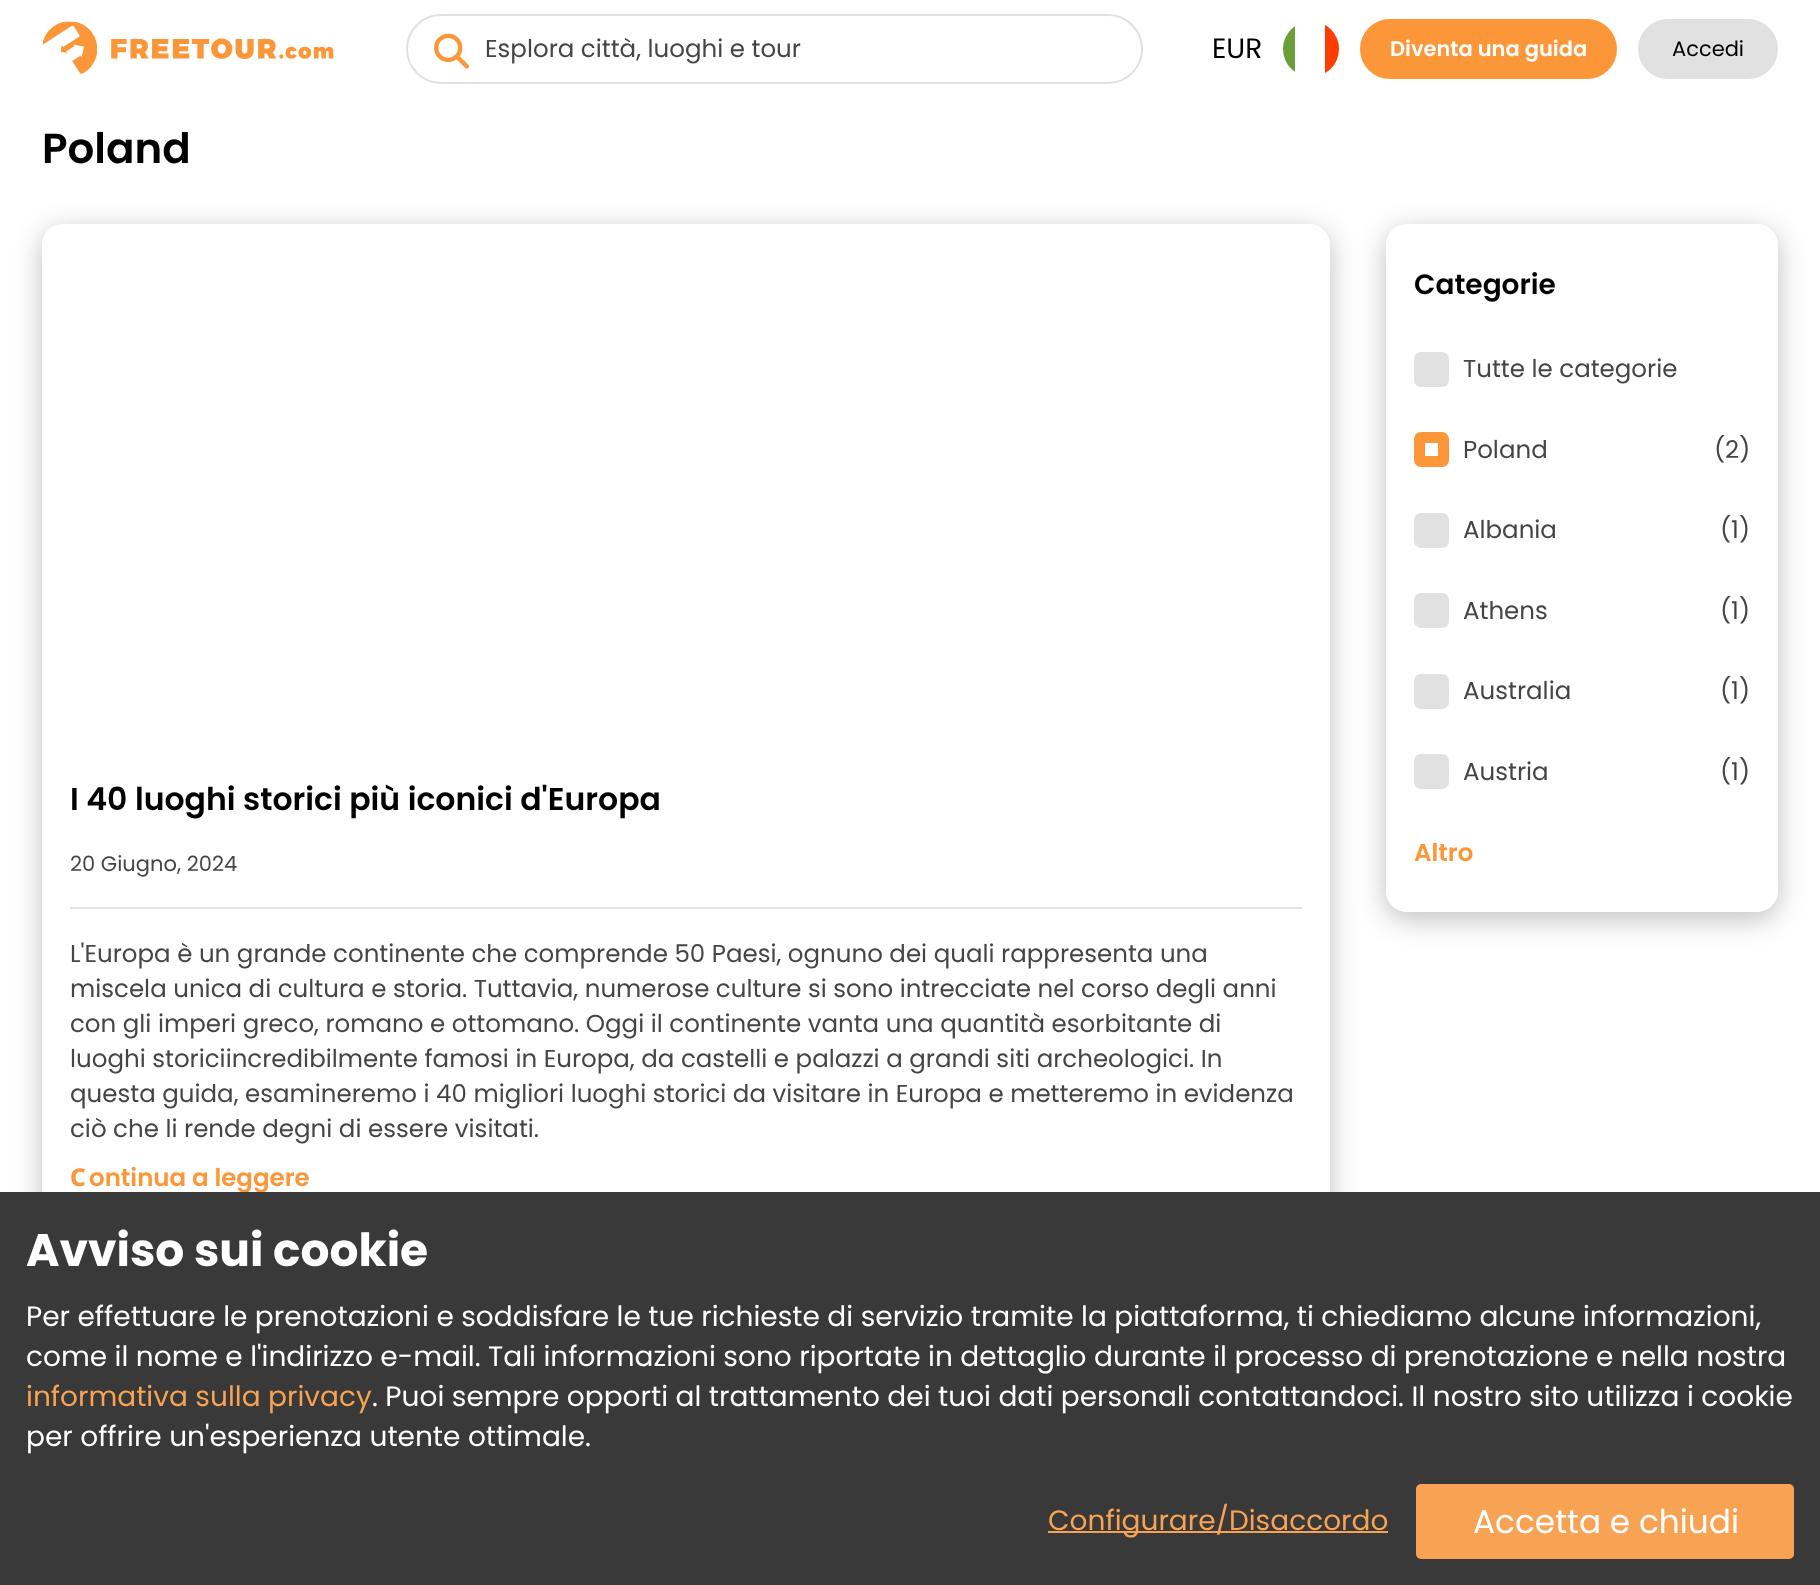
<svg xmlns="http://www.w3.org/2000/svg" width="1820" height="1585">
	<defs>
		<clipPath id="clip1"><rect x="1283" y="21" width="56" height="56" rx="28" /></clipPath>
		<clipPath id="clip2"><path d="M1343 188H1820V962H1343ZM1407 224H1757C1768.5 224 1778 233.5 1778 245V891C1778 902.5 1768.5 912 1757 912H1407C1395.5 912 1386 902.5 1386 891V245C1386 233.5 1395.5 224 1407 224Z" clip-rule="evenodd" /></clipPath>
		<clipPath id="clip3"><path d="M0 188H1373V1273H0ZM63 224H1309C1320.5 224 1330 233.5 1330 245V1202C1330 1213.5 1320.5 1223 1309 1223H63C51.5 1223 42 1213.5 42 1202V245C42 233.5 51.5 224 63 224Z" clip-rule="evenodd" /></clipPath>
	</defs>
	<rect width="100%" height="100%" fill="#FFFFFF" />
	<image x="42" y="21" width="292" height="53" href="assets/img1.png" />
	<rect x="407" y="15" width="735" height="68" rx="34" fill="none" stroke="#E1E1E1" stroke-width="2" />
	<image x="434" y="33" width="35" height="36" href="assets/img2.png" />
	<text x="485" y="57" font-family="Poppins" font-size="24.5" fill="#454545">Esplora città, luoghi e tour</text>
	<text x="1212" y="58" font-family="Poppins" font-size="28" fill="#000000">EUR</text>
	<g clip-path="url(#clip1)">
		<rect x="1325" y="24" width="14" height="50" fill="#FF3D00" />
		<rect x="1283" y="26" width="12" height="46" fill="#689F38" />
	</g>
	<rect x="1361" y="20" width="255" height="58" rx="29" fill="#FC9739" stroke="#FC9739" stroke-width="2" />
	<text x="1390" y="56" font-family="Poppins" font-size="21" font-weight="600" fill="#FFFFFF">Diventa una guida</text>
	<rect x="1639" y="20" width="138" height="58" rx="29" fill="#E1E1E1" stroke="#E1E1E1" stroke-width="2" />
	<text x="1672" y="56" font-family="Poppins" font-size="21" fill="#000000">Accedi</text>
	<text x="42" y="163" font-family="Poppins" font-size="42" font-weight="600" fill="#000000">Poland</text>
	<g clip-path="url(#clip2)">
		<rect x="1386" y="231" width="392" height="688" rx="21" fill="#000000" fill-opacity="0.25" filter="blur(14px)" />
	</g>
	<text x="1414" y="294" font-family="Poppins" font-size="28" font-weight="600" fill="#000000">Categorie</text>
	<rect x="1414" y="352" width="35" height="35" rx="7" fill="#E1E1E1" />
	<text x="1463" y="377" font-family="Poppins" font-size="24.5" fill="#454545">Tutte le categorie</text>
	<rect x="1419.5" y="437.5" width="24" height="24" rx="1.5" fill="none" stroke="#FC9739" stroke-width="11" />
	<g font-family="Poppins" font-size="24.5" fill="#454545">
		<text x="1463" y="458">Poland</text>
		<text x="1714" y="458">(2)</text>
	</g>
	<rect x="1414" y="513" width="35" height="35" rx="7" fill="#E1E1E1" />
	<g font-family="Poppins" font-size="24.5" fill="#454545">
		<text x="1463" y="538">Albania</text>
		<text x="1720" y="538">(1)</text>
	</g>
	<rect x="1414" y="593" width="35" height="35" rx="7" fill="#E1E1E1" />
	<g font-family="Poppins" font-size="24.5" fill="#454545">
		<text x="1463" y="619">Athens</text>
		<text x="1720" y="619">(1)</text>
	</g>
	<rect x="1414" y="674" width="35" height="35" rx="7" fill="#E1E1E1" />
	<g font-family="Poppins" font-size="24.5" fill="#454545">
		<text x="1463" y="699">Australia</text>
		<text x="1720" y="699">(1)</text>
	</g>
	<rect x="1414" y="754" width="35" height="35" rx="7" fill="#E1E1E1" />
	<g font-family="Poppins" font-size="24.5" fill="#454545">
		<text x="1463" y="780">Austria</text>
		<text x="1720" y="780">(1)</text>
	</g>
	<text x="1414" y="861" font-family="Poppins" font-size="24.5" font-weight="600" fill="#FC9739">Altro</text>
	<g clip-path="url(#clip3)">
		<rect x="42" y="231" width="1288" height="999" rx="21" fill="#000000" fill-opacity="0.25" filter="blur(14px)" />
	</g>
	<text x="70" y="810" font-family="Poppins" font-size="31.5" font-weight="600" fill="#000000">I 40 luoghi storici più iconici d'Europa</text>
	<text x="70" y="871" font-family="Poppins" font-size="21" fill="#454545">20 Giugno, 2024</text>
	<rect x="70" y="907" width="1232" height="2" fill="#E1E1E1" />
	<g font-family="Poppins" font-size="24.5" fill="#454545">
		<text x="70" y="962">L'Europa è un grande continente che comprende 50 Paesi, ognuno dei quali rappresenta una</text>
		<text x="70" y="997">miscela unica di cultura e storia. Tuttavia, numerose culture si sono intrecciate nel corso degli anni</text>
		<text x="70" y="1032">con gli imperi greco, romano e ottomano. Oggi il continente vanta una quantità esorbitante di</text>
		<text x="70" y="1067">luoghi storiciincredibilmente famosi in Europa, da castelli e palazzi a grandi siti archeologici. In</text>
		<text x="70" y="1102">questa guida, esamineremo i 40 migliori luoghi storici da visitare in Europa e metteremo in evidenza</text>
		<text x="70" y="1137">ciò che li rende degni di essere visitati.</text>
	</g>
	<text x="70" y="1186" font-family="Noto Sans" font-size="24.5" font-weight="800" fill="#FC9739">C</text>
	<text x="89" y="1186" font-family="Poppins" font-size="24.5" font-weight="600" fill="#FC9739">ontinua a leggere</text>
	<rect x="0" y="1192" width="1820" height="393" fill="#393939" />
	<text x="26" y="1266" font-family="Poppins" font-size="45.5" font-weight="700" fill="#FFFFFF">Avviso sui cookie</text>
	<g font-family="Poppins" font-size="28" fill="#FFFFFF">
		<text x="26" y="1326">Per effettuare le prenotazioni e soddisfare le tue richieste di servizio tramite la piattaforma, ti chiediamo alcune informazioni,</text>
		<text x="26" y="1366">come il nome e l'indirizzo e-mail. Tali informazioni sono riportate in dettaglio durante il processo di prenotazione e nella nostra</text>
	</g>
	<text x="26" y="1406" font-family="Poppins" font-size="28" fill="#F8A354">informativa sulla privacy</text>
	<g font-family="Poppins" font-size="28" fill="#FFFFFF">
		<text x="372" y="1406">. Puoi sempre opporti al trattamento dei tuoi dati personali contattandoci. Il nostro sito utilizza i cookie</text>
		<text x="26" y="1446">per offrire un'esperienza utente ottimale.</text>
	</g>
	<rect x="1048" y="1531" width="340" height="2" fill="#F8A354" />
	<text x="1048" y="1530" font-family="Poppins" font-size="28" fill="#F8A354">Configurare/Disaccordo</text>
	<rect x="1416" y="1484" width="378" height="75" rx="5" fill="#F8A354" />
	<text x="1473" y="1533" font-family="Poppins" font-size="32.75" fill="#FFFFFF">Accetta e chiudi</text>
</svg>
